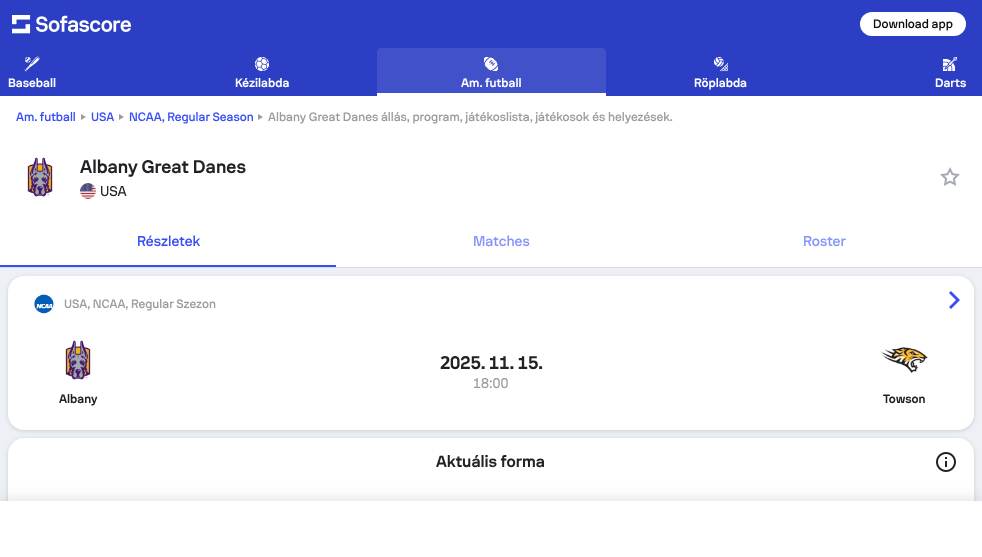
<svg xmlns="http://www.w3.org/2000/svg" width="982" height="557">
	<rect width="100%" height="100%" fill="#EDF1F6" />
	<rect x="0" y="0" width="982" height="96" fill="#2C3EC4" />
	<image x="12" y="15" width="119" height="19" href="assets/img1.png" />
	<rect x="860" y="12" width="106" height="24" rx="12" fill="#FFFFFF" />
	<text x="873" y="28" font-family="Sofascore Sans" font-size="12" font-weight="500" fill="#0C0C0D">Download app</text>
	<image x="24" y="56" width="16" height="16" href="assets/img2.png" />
	<text x="8" y="87" font-family="Sofascore Sans" font-size="12" font-weight="700" fill="#FFFFFF">Baseball</text>
	<image x="255" y="57" width="14" height="14" href="assets/img3.png" />
	<text x="235" y="87" font-family="Sofascore Sans" font-size="12" font-weight="700" fill="#FFFFFF">Kézilabda</text>
	<path d="M381 48H602C604 48 606 50 606 52V96H377V52C377 50 379 48 381 48Z" fill="#4151CA" />
	<rect x="377" y="93" width="229" height="3" fill="#FFFFFF" />
	<image x="484" y="57" width="14" height="14" href="assets/img4.png" />
	<text x="461" y="87" font-family="Sofascore Sans" font-size="12" font-weight="700" fill="#FFFFFF">Am. futball</text>
	<image x="714" y="57" width="14" height="15" href="assets/img5.png" />
	<text x="694" y="87" font-family="Sofascore Sans" font-size="12" font-weight="700" fill="#FFFFFF">Röplabda</text>
	<image x="943" y="57" width="14" height="14" href="assets/img6.png" />
	<text x="935" y="87" font-family="Sofascore Sans" font-size="12" font-weight="700" fill="#FFFFFF">Darts</text>
	<rect x="0" y="96" width="982" height="171" fill="#FFFFFF" />
	<text x="16" y="121" font-family="Sofascore Sans" font-size="12" font-weight="500" fill="#374DF5">Am. futball</text>
	<path d="M81 120V114L86 117Z" fill="#9C9C9D" />
	<text x="91" y="121" font-family="Sofascore Sans" font-size="12" font-weight="500" fill="#374DF5">USA</text>
	<path d="M119 120V114L124 117Z" fill="#9C9C9D" />
	<text x="129" y="121" font-family="Sofascore Sans" font-size="12" font-weight="500" fill="#374DF5">NCAA, Regular Season</text>
	<path d="M258 120V114L263 117Z" fill="#9C9C9D" />
	<text x="268" y="121" font-family="Sofascore Sans" font-size="12" font-weight="500" fill="#9C9C9D">Albany Great Danes állás, program, játékoslista, játékosok és helyezések.</text>
	<image x="27" y="157" width="26" height="40" href="assets/img7.png" />
	<text x="80" y="173" font-family="Sofascore Sans" font-size="18" font-weight="700" fill="#222226">Albany Great Danes</text>
	<image x="80" y="183" width="16" height="16" href="assets/img8.png" />
	<text x="100" y="196" font-family="Sofascore Sans" font-size="14" fill="#222226">USA</text>
	<image x="940" y="167" width="20" height="19" href="assets/img9.png" />
	<rect x="0" y="267" width="982" height="1" fill="#DCDCDC" />
	<rect x="0" y="265" width="336" height="2" fill="#374DF5" />
	<text x="137" y="246" font-family="Sofascore Sans" font-size="14" font-weight="500" fill="#374DF5">Részletek</text>
	<g font-family="Sofascore Sans" font-size="14" font-weight="500" fill="#8794F9">
		<text x="473" y="246">Matches</text>
		<text x="803" y="246">Roster</text>
	</g>
	<rect x="8" y="277" width="966" height="154" rx="16" fill="#222226" fill-opacity="0.16" filter="blur(2px)" />
	<rect x="8" y="276" width="966" height="154" rx="16" fill="#FFFFFF" />
	<image x="34" y="294" width="20" height="20" href="assets/img10.png" />
	<text x="64" y="308" font-family="Sofascore Sans" font-size="12" font-weight="500" fill="#9C9C9D">USA, NCAA, Regular Szezon</text>
	<path d="M951 291L949 293L956 300L949 307L951 309L960 300Z" fill="#374DF5" />
	<text x="440" y="369" font-family="Noto Sans" font-size="18" font-weight="700" fill="#222226">2</text>
	<text x="450" y="369" font-family="Sofascore Sans" font-size="18" font-weight="700" fill="#222226">025. 11. 15.</text>
	<text x="473" y="388" font-family="Sofascore Sans" font-size="14" fill="#9C9C9D">18:00</text>
	<image x="65" y="340" width="26" height="40" href="assets/img7.png" />
	<text x="59" y="403" font-family="Sofascore Sans" font-size="12" font-weight="700" fill="#222226">Albany</text>
	<image x="880" y="347" width="48" height="27" href="assets/img11.png" />
	<text x="883" y="403" font-family="Sofascore Sans" font-size="12" font-weight="700" fill="#222226">Towson</text>
	<rect x="8" y="439" width="966" height="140" rx="16" fill="#222226" fill-opacity="0.16" filter="blur(2px)" />
	<rect x="8" y="438" width="966" height="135" rx="16" fill="#FFFFFF" />
	<text x="436" y="467" font-family="Sofascore Sans" font-size="16" font-weight="700" fill="#222226">Aktuális forma</text>
	<image x="936" y="452" width="20" height="20" href="assets/img12.png" />
	<rect x="-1" y="501" width="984" height="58" fill="#222226" fill-opacity="0.16" filter="blur(8px)" />
	<rect x="0" y="501" width="982" height="56" fill="#FFFFFF" />
</svg>
